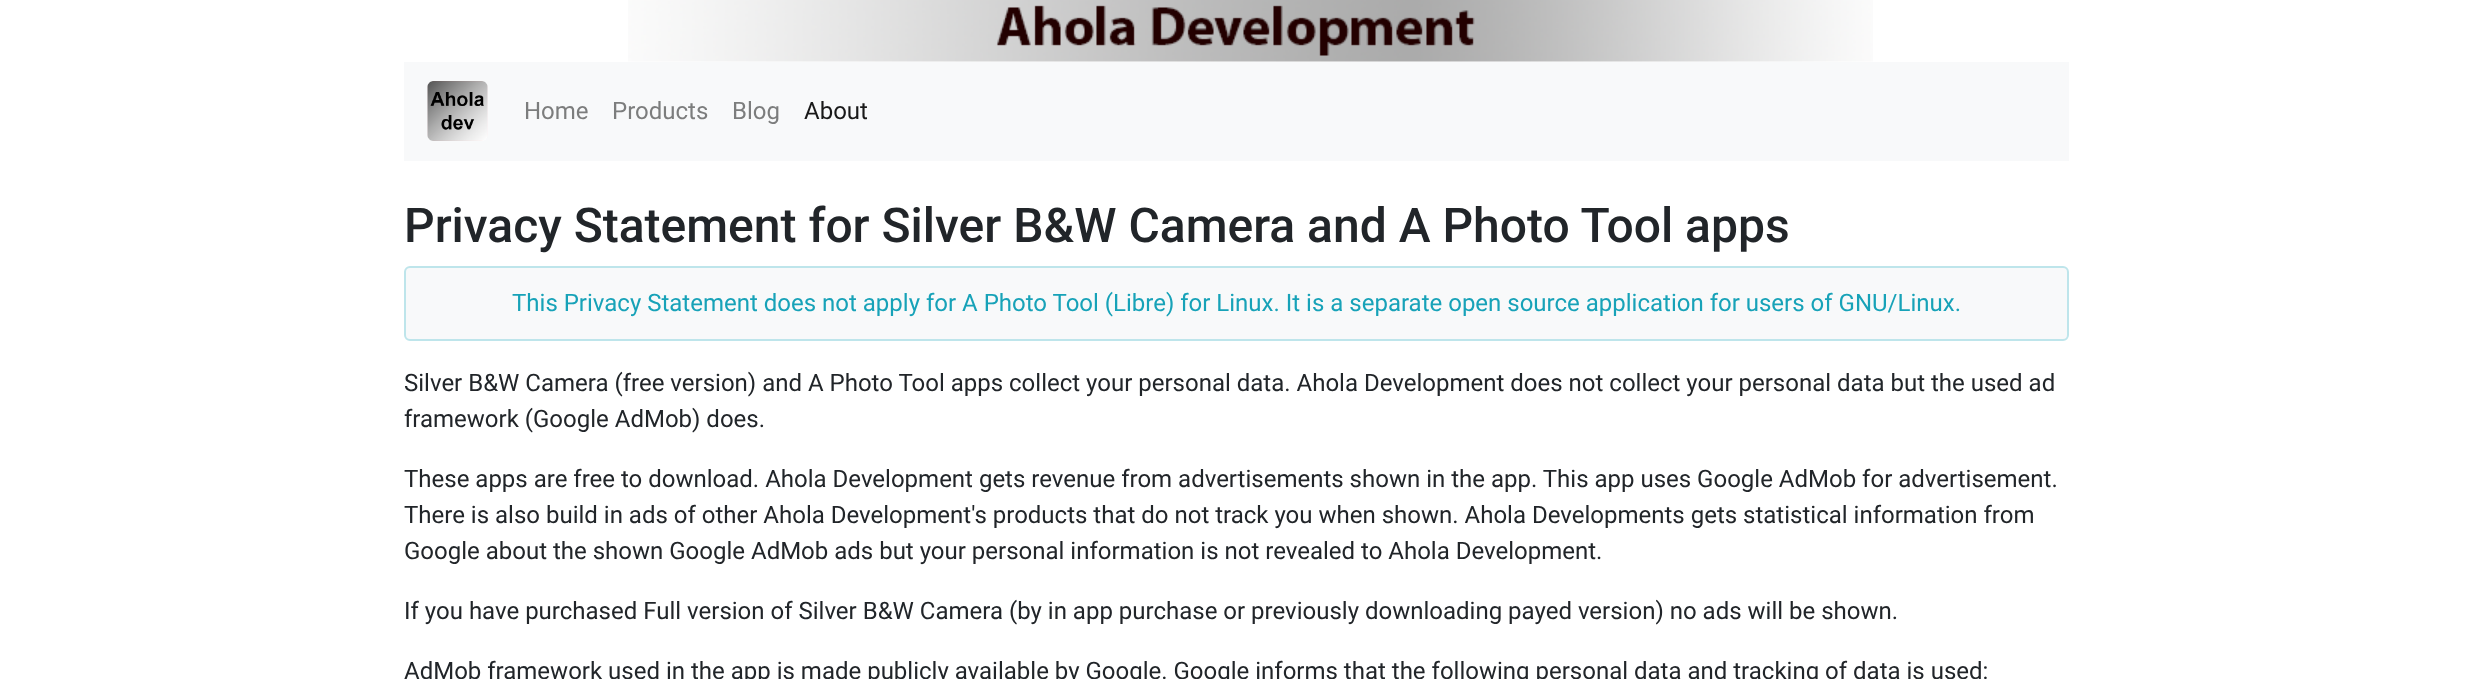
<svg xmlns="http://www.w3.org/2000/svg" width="2472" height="679">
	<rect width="100%" height="100%" fill="#FFFFFF" />
	<image x="628" y="0" width="1245" height="62" href="assets/img1.png" />
	<rect x="404" y="62" width="1665" height="99" fill="#F8F9FA" />
	<image x="427" y="81" width="61" height="60" href="assets/img2.png" />
	<g font-family="Roboto" font-size="24" fill="#7C7D7D">
		<text x="524" y="119">Home</text>
		<text x="612" y="119">Products</text>
		<text x="732" y="119">Blog</text>
	</g>
	<text x="804" y="119" font-family="Roboto" font-size="24" fill="#191919">About</text>
	<text x="404" y="242" font-family="Roboto" font-size="48" font-weight="500" fill="#212529">Privacy Statement for Silver B&amp;W Camera and A Photo Tool apps</text>
	<rect x="405" y="267" width="1663" height="73" rx="5" fill="#F8F9FA" stroke="#BEE5EB" stroke-width="2" />
	<text x="512" y="311" font-family="Roboto" font-size="24" fill="#17A2B8">This Privacy Statement does not apply for A Photo Tool (Libre) for Linux. It is a separate open source application for users of GNU/Linux.</text>
	<g font-family="Roboto" font-size="24" fill="#212529">
		<text x="404" y="391">Silver B&amp;W Camera (free version) and A Photo Tool apps collect your personal data. Ahola Development does not collect your personal data but the used ad</text>
		<text x="404" y="427">framework (Google AdMob) does.</text>
		<text x="404" y="487">These apps are free to download. Ahola Development gets revenue from advertisements shown in the app. This app uses Google AdMob for advertisement.</text>
		<text x="404" y="523">There is also build in ads of other Ahola Development's products that do not track you when shown. Ahola Developments gets statistical information from</text>
		<text x="404" y="559">Google about the shown Google AdMob ads but your personal information is not revealed to Ahola Development.</text>
		<text x="404" y="619">If you have purchased Full version of Silver B&amp;W Camera (by in app purchase or previously downloading payed version) no ads will be shown.</text>
		<text x="404" y="679">AdMob framework used in the app is made publicly available by Google. Google informs that the following personal data and tracking of data is used:</text>
	</g>
</svg>
